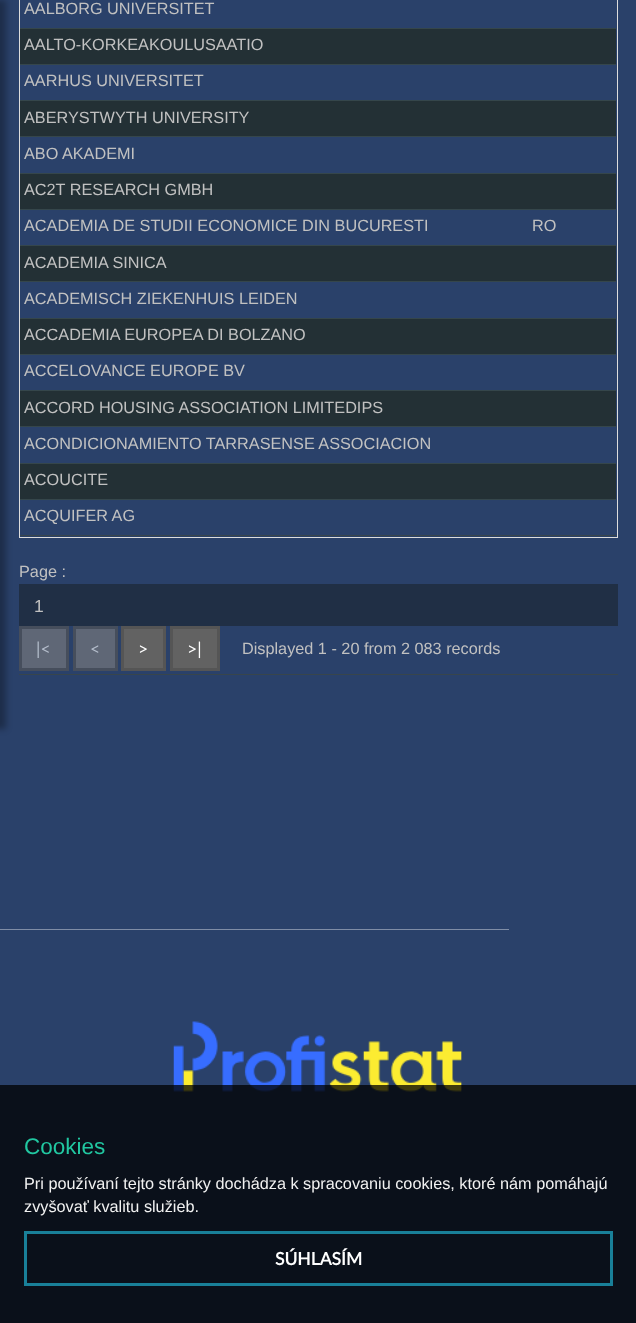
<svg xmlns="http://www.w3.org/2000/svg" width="636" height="1323">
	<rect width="100%" height="100%" fill="#2A416A" />
	<rect x="-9" y="0" width="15" height="729" fill="#000000" fill-opacity="0.3" filter="blur(3px)" />
	<rect x="19.5" y="-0.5" width="598" height="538" fill="none" stroke="#DDDDDD" />
	<rect x="20" y="535" width="596" height="1" fill="#38454B" />
	<text x="24" y="14" font-family="Liberation Sans" font-size="16.25" fill="#C1C1C1">AALBORG UNIVERSITET</text>
	<rect x="20" y="28" width="596" height="1" fill="#35464B" />
	<rect x="20" y="29" width="596" height="35" fill="#233035" />
	<text x="24" y="50" font-family="Liberation Sans" font-size="16.25" fill="#C1C1C1">AALTO-KORKEAKOULUSAATIO</text>
	<rect x="20" y="64" width="596" height="1" fill="#35464B" />
	<text x="24" y="86" font-family="Liberation Sans" font-size="16.25" fill="#C1C1C1">AARHUS UNIVERSITET</text>
	<rect x="20" y="100" width="596" height="1" fill="#35464B" />
	<rect x="20" y="101" width="596" height="35" fill="#233035" />
	<text x="24" y="123" font-family="Liberation Sans" font-size="16.25" fill="#C1C1C1">ABERYSTWYTH UNIVERSITY</text>
	<rect x="20" y="136" width="596" height="1" fill="#35464B" />
	<text x="24" y="159" font-family="Liberation Sans" font-size="16.25" fill="#C1C1C1">ABO AKADEMI</text>
	<rect x="20" y="173" width="596" height="1" fill="#35464B" />
	<rect x="20" y="174" width="596" height="35" fill="#233035" />
	<g font-family="Liberation Sans" font-size="16.25" fill="#C1C1C1">
		<text x="24" y="195">AC2T RESEARCH GMBH</text>
		<text x="24" y="231">ACADEMIA DE STUDII ECONOMICE DIN BUCURESTI</text>
	</g>
	<rect x="20" y="209" width="596" height="1" fill="#35464B" />
	<text x="532" y="231" font-family="Liberation Sans" font-size="16.25" fill="#C1C1C1">RO</text>
	<rect x="20" y="245" width="596" height="1" fill="#35464B" />
	<rect x="20" y="246" width="596" height="35" fill="#233035" />
	<text x="24" y="268" font-family="Liberation Sans" font-size="16.25" fill="#C1C1C1">ACADEMIA SINICA</text>
	<rect x="20" y="281" width="596" height="1" fill="#35464B" />
	<text x="24" y="304" font-family="Liberation Sans" font-size="16.25" fill="#C1C1C1">ACADEMISCH ZIEKENHUIS LEIDEN</text>
	<rect x="20" y="318" width="596" height="1" fill="#35464B" />
	<rect x="20" y="319" width="596" height="35" fill="#233035" />
	<text x="24" y="340" font-family="Liberation Sans" font-size="16.25" fill="#C1C1C1">ACCADEMIA EUROPEA DI BOLZANO</text>
	<rect x="20" y="354" width="596" height="1" fill="#35464B" />
	<text x="24" y="376" font-family="Liberation Sans" font-size="16.25" fill="#C1C1C1">ACCELOVANCE EUROPE BV</text>
	<rect x="20" y="390" width="596" height="1" fill="#35464B" />
	<rect x="20" y="391" width="596" height="35" fill="#233035" />
	<text x="24" y="413" font-family="Liberation Sans" font-size="16.25" fill="#C1C1C1">ACCORD HOUSING ASSOCIATION LIMITEDIPS</text>
	<rect x="20" y="426" width="596" height="1" fill="#35464B" />
	<text x="24" y="449" font-family="Liberation Sans" font-size="16.25" fill="#C1C1C1">ACONDICIONAMIENTO TARRASENSE ASSOCIACION</text>
	<rect x="20" y="463" width="596" height="1" fill="#35464B" />
	<rect x="20" y="464" width="596" height="35" fill="#233035" />
	<text x="24" y="485" font-family="Liberation Sans" font-size="16.25" fill="#C1C1C1">ACOUCITE</text>
	<rect x="20" y="499" width="596" height="1" fill="#35464B" />
	<g font-family="Liberation Sans" font-size="16.25" fill="#C1C1C1">
		<text x="24" y="521">ACQUIFER AG</text>
		<text x="19" y="577">Page :</text>
	</g>
	<rect x="19" y="584" width="599" height="42" fill="#202F45" />
	<text x="34" y="612" font-family="Liberation Sans" font-size="17.5" fill="#C1C1C1">1</text>
	<rect x="20.5" y="627.5" width="47" height="42" fill="#5F6776" stroke="#464E5C" stroke-width="3" />
	<text x="36" y="655" font-family="Lato" font-size="17.5" fill="#B4BDCB">|&lt;</text>
	<rect x="74.5" y="627.5" width="42" height="42" fill="#5F6776" stroke="#464E5C" stroke-width="3" />
	<text x="90" y="655" font-family="Lato" font-size="17.5" fill="#B4BDCB">&lt;</text>
	<rect x="122.5" y="627.5" width="42" height="42" fill="#626262" stroke="#555555" stroke-width="3" />
	<text x="138" y="655" font-family="Lato" font-size="17.5" fill="#FFFFFF">&gt;</text>
	<rect x="171.5" y="627.5" width="47" height="42" fill="#626262" stroke="#555555" stroke-width="3" />
	<text x="187" y="655" font-family="Lato" font-size="17.5" fill="#FFFFFF">&gt;|</text>
	<text x="242" y="654" font-family="Liberation Sans" font-size="16.25" fill="#C1C1C1">Displayed 1 - 20 from 2 083 records</text>
	<rect x="19" y="674" width="599" height="1" fill="#38454B" />
	<rect x="0" y="929" width="509" height="1" fill="#7F8DA6" />
	<image x="173" y="1021" width="289" height="71" href="assets/img1.png" />
	<rect x="0" y="1085" width="636" height="238" fill="#000000" fill-opacity="0.75" />
	<text x="24" y="1154" font-family="Liberation Sans" font-size="22.5" fill="#21C7A1">Cookies</text>
	<g font-family="Liberation Sans" font-size="16.25" fill="#F1F1F1">
		<text x="24" y="1189">Pri používaní tejto stránky dochádza k spracovaniu cookies, ktoré nám pomáhajú</text>
		<text x="24" y="1212">zvyšovať kvalitu služieb.</text>
	</g>
	<rect x="25.5" y="1232.5" width="586" height="52" fill="none" stroke="#198099" stroke-width="3" />
	<text x="275" y="1265" font-family="Lato" font-size="17.5" font-weight="700" fill="#FFFFFF">SÚHLASÍM</text>
</svg>
